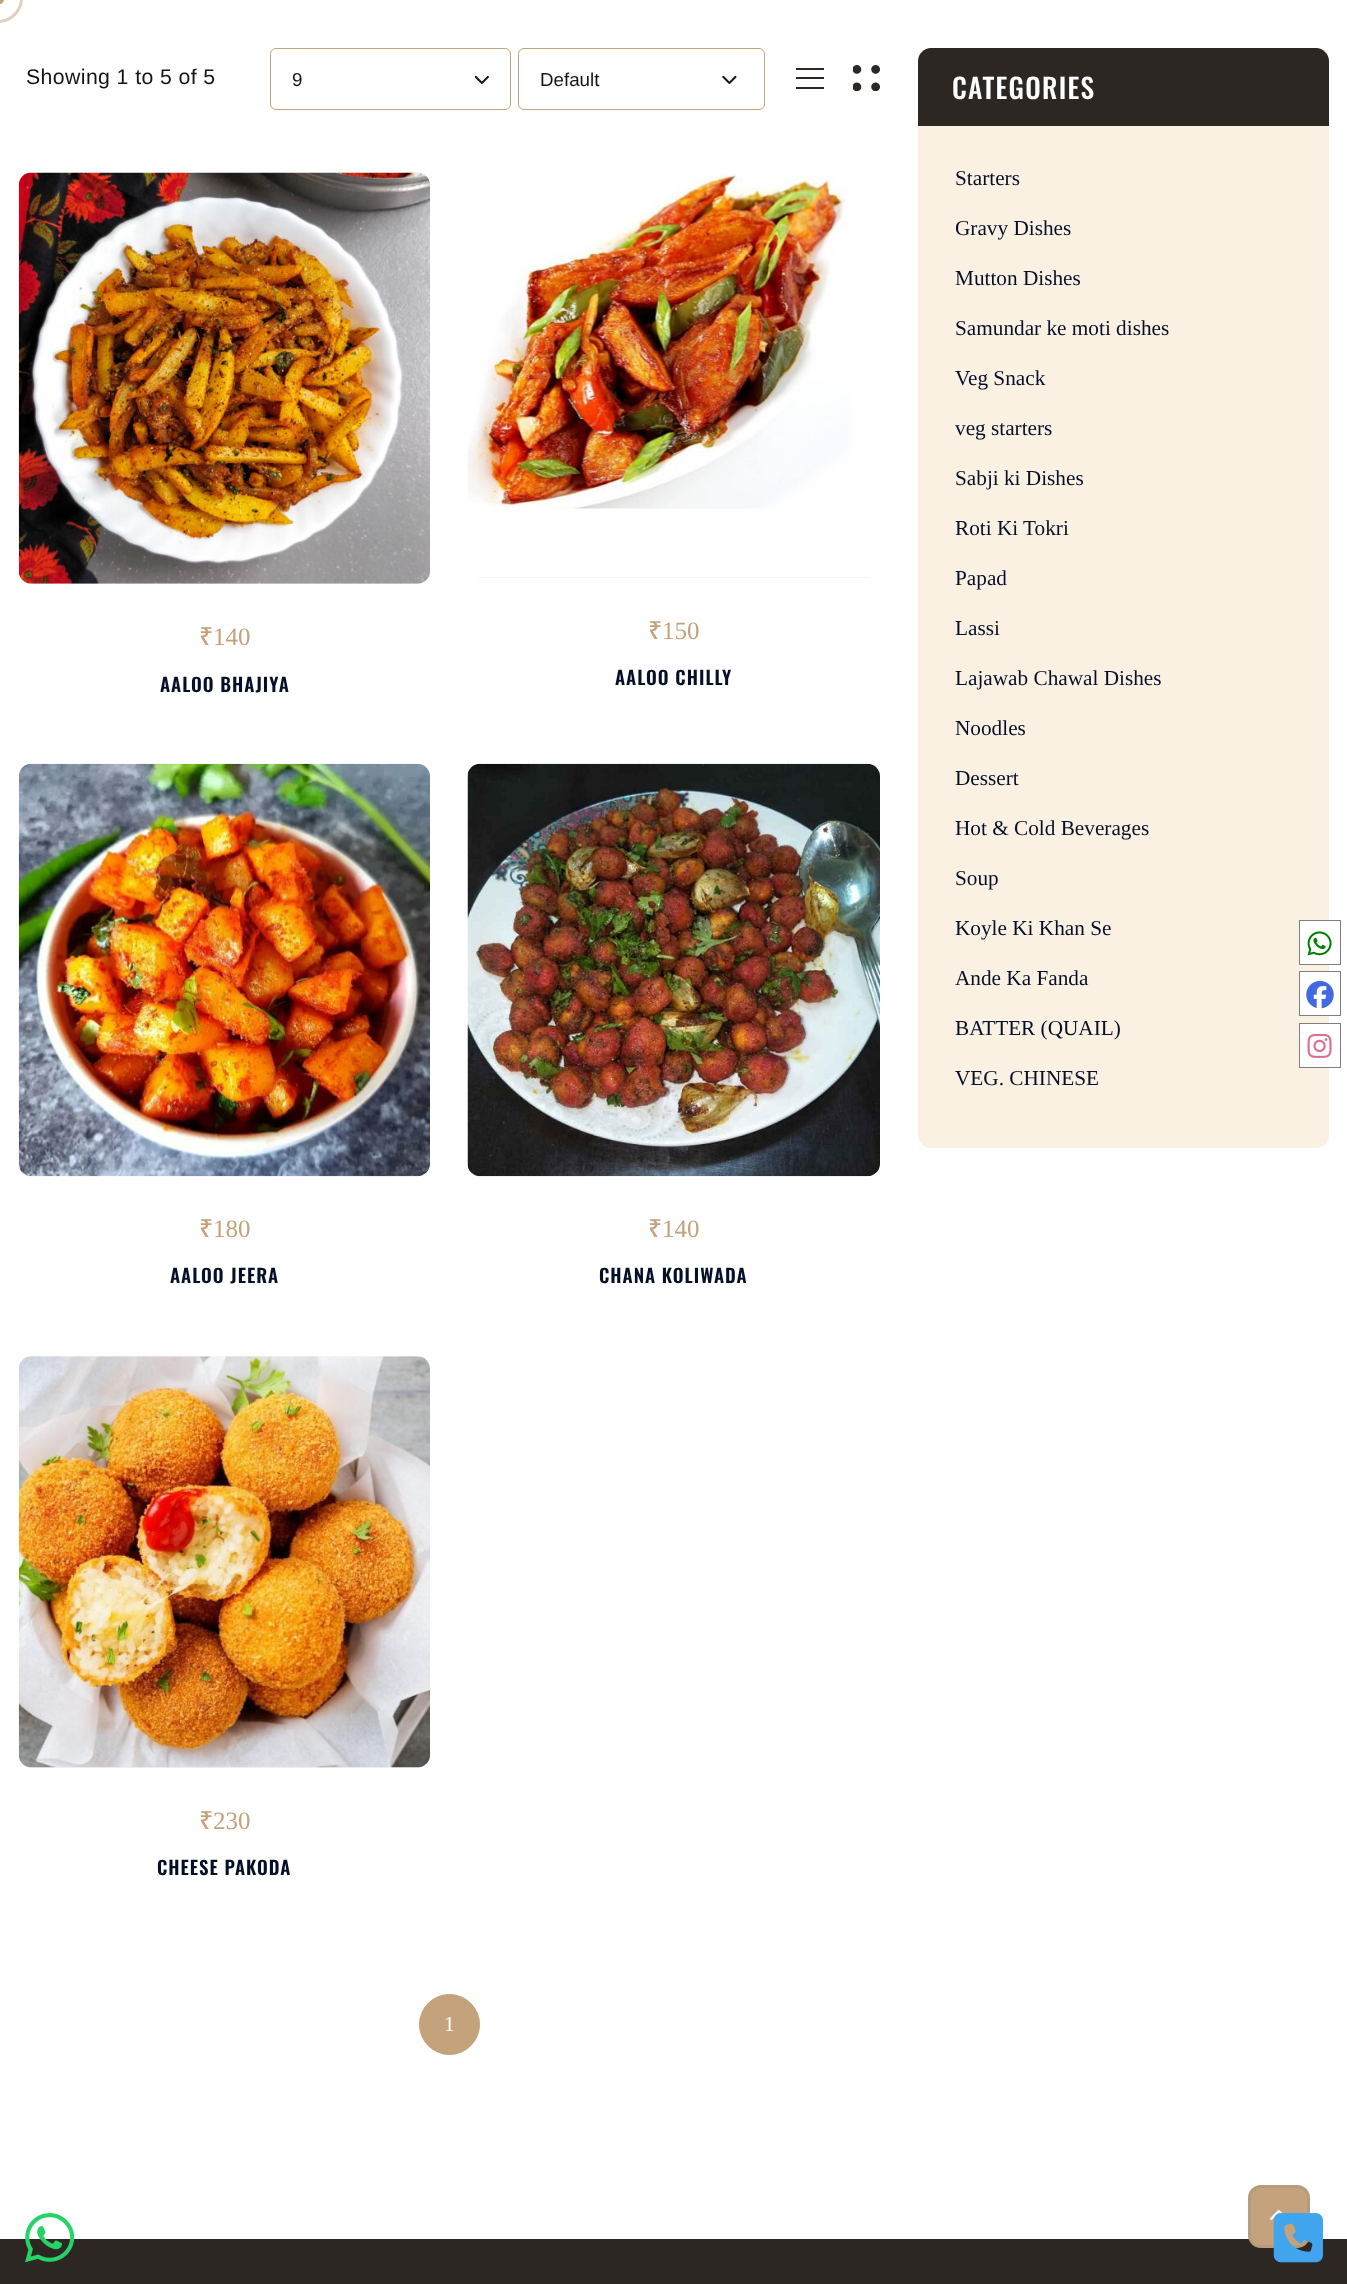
<svg xmlns="http://www.w3.org/2000/svg" width="1347" height="2284">
	<rect width="100%" height="100%" fill="#FFFFFF" />
	<circle cx="-2" cy="-2" r="23.5" fill="none" stroke="#E1D1BE" stroke-width="3" />
	<rect x="-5" y="-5" width="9" height="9" rx="5" fill="#C3A27C" />
	<text x="26" y="84" font-family="Liberation Sans" font-size="21.25" letter-spacing="0.4" fill="#171412">Showing 1 to 5 of 5</text>
	<rect x="270.5" y="48.5" width="240" height="61" rx="5.5" fill="none" stroke="#C3A27C" />
	<text x="292" y="86" font-family="Liberation Sans" font-size="18.75" fill="#171412">9</text>
	<image x="474" y="75" width="15" height="9" href="assets/img1.png" />
	<rect x="518.5" y="48.5" width="246" height="61" rx="5.5" fill="none" stroke="#C3A27C" />
	<text x="540" y="86" font-family="Liberation Sans" font-size="18.75" fill="#171412">Default</text>
	<image x="722" y="75" width="15" height="9" href="assets/img2.png" />
	<rect x="796" y="68" width="28" height="2" fill="#2D2723" />
	<rect x="796" y="77" width="28" height="2" fill="#2D2723" />
	<rect x="796" y="87" width="28" height="2" fill="#2D2723" />
	<image x="853" y="65" width="27" height="26" href="assets/img3.png" />
	<rect x="19" y="173" width="411" height="411" rx="13" fill="#F5F5F5" />
	<image x="18" y="172" width="412" height="412" href="assets/img4.png" />
	<text x="199" y="645" font-family="Noto Sans" font-size="25" font-weight="500" fill="#C3A27C">₹</text>
	<text x="213" y="645" font-family="Liberation Serif" font-size="25" fill="#C3A27C">140</text>
	<text x="160" y="692" font-family="Oswald" font-size="18.75" font-weight="600" letter-spacing="1" fill="#051028">AALOO BHAJIYA</text>
	<rect x="468" y="173" width="412" height="405" rx="13" fill="#F5F5F5" />
	<image x="467" y="173" width="413" height="404" href="assets/img5.png" />
	<text x="648" y="639" font-family="Noto Sans" font-size="25" font-weight="500" fill="#C3A27C">₹</text>
	<text x="662" y="639" font-family="Liberation Serif" font-size="25" fill="#C3A27C">150</text>
	<text x="615" y="685" font-family="Oswald" font-size="18.75" font-weight="600" letter-spacing="1" fill="#051028">AALOO CHILLY</text>
	<image x="18" y="763" width="412" height="414" href="assets/img6.png" />
	<text x="199" y="1237" font-family="Noto Sans" font-size="25" font-weight="500" fill="#C3A27C">₹</text>
	<text x="213" y="1237" font-family="Liberation Serif" font-size="25" fill="#C3A27C">180</text>
	<text x="170" y="1283" font-family="Oswald" font-size="18.75" font-weight="600" letter-spacing="1" fill="#051028">AALOO JEERA</text>
	<image x="467" y="763" width="413" height="414" href="assets/img7.png" />
	<text x="648" y="1237" font-family="Noto Sans" font-size="25" font-weight="500" fill="#C3A27C">₹</text>
	<text x="662" y="1237" font-family="Liberation Serif" font-size="25" fill="#C3A27C">140</text>
	<text x="599" y="1283" font-family="Oswald" font-size="18.75" font-weight="600" letter-spacing="1" fill="#051028">CHANA KOLIWADA</text>
	<rect x="19" y="1356" width="411" height="412" rx="13" fill="#F5F5F5" />
	<image x="18" y="1356" width="412" height="412" href="assets/img8.png" />
	<text x="199" y="1829" font-family="Noto Sans" font-size="25" font-weight="500" fill="#C3A27C">₹</text>
	<text x="213" y="1829" font-family="Liberation Serif" font-size="25" fill="#C3A27C">230</text>
	<text x="157" y="1875" font-family="Oswald" font-size="18.75" font-weight="600" letter-spacing="1" fill="#051028">CHEESE PAKODA</text>
	<circle cx="449.5" cy="2024.5" r="30" fill="#C3A27C" stroke="#C3A27C" />
	<text x="444" y="2031" font-family="Liberation Serif" font-size="21.25" fill="#FFFFFF">1</text>
	<path d="M931 48H1316C1323 48 1329 54 1329 61V126H918V61C918 54 924 48 931 48Z" fill="#2D2723" />
	<text x="952" y="99" font-family="Oswald" font-size="27.5" font-weight="500" letter-spacing="1.25" fill="#FFFFFF">CATEGORIES</text>
	<path d="M918 126H1329V1135C1329 1142 1323 1148 1316 1148H931C924 1148 918 1142 918 1135Z" fill="#FAF1E3" />
	<g font-family="Liberation Serif" font-size="21.25" fill="#051028">
		<text x="955" y="185">Starters</text>
		<text x="955" y="235">Gravy Dishes</text>
		<text x="955" y="285">Mutton Dishes</text>
		<text x="955" y="335">Samundar ke moti dishes</text>
		<text x="955" y="385">Veg Snack</text>
		<text x="955" y="435">veg starters</text>
		<text x="955" y="485">Sabji ki Dishes</text>
		<text x="955" y="535">Roti Ki Tokri</text>
		<text x="955" y="585">Papad</text>
		<text x="955" y="635">Lassi</text>
		<text x="955" y="685">Lajawab Chawal Dishes</text>
		<text x="955" y="735">Noodles</text>
		<text x="955" y="785">Dessert</text>
		<text x="955" y="835">Hot &amp; Cold Beverages</text>
		<text x="955" y="885">Soup</text>
		<text x="955" y="935">Koyle Ki Khan Se</text>
		<text x="955" y="985">Ande Ka Fanda</text>
		<text x="955" y="1035">BATTER (QUAIL)</text>
		<text x="955" y="1085">VEG. CHINESE</text>
	</g>
	<rect x="1300" y="921" width="29" height="43" fill="#FFFFFF" />
	<rect x="1299.5" y="920.5" width="41" height="44" fill="none" stroke="#808080" />
	<image x="1307" y="931" width="25" height="25" href="assets/img9.png" />
	<rect x="1300" y="972" width="29" height="43" fill="#FFFFFF" />
	<rect x="1299.5" y="971.5" width="41" height="44" fill="none" stroke="#808080" />
	<image x="1306" y="980" width="28" height="29" href="assets/img10.png" />
	<rect x="1300" y="1024" width="29" height="43" fill="#FFFFFF" />
	<rect x="1299.5" y="1023.5" width="41" height="44" fill="none" stroke="#808080" />
	<image x="1307" y="1033" width="25" height="25" href="assets/img11.png" />
	<rect x="0" y="2239" width="1347" height="45" fill="#2D2723" />
	<image x="25" y="2213" width="50" height="50" href="assets/img12.png" />
	<rect x="1248" y="2185" width="62" height="63" rx="13" fill="#C3A27C" />
	<rect x="1249.5" y="2186.5" width="59" height="60" rx="11.5" fill="none" stroke="#828282" stroke-opacity="0.2" stroke-width="3" />
	<image x="1270" y="2210" width="14" height="10" href="assets/img14.png" />
	<image x="1273" y="2213" width="50" height="50" href="assets/img13.png" />
</svg>
